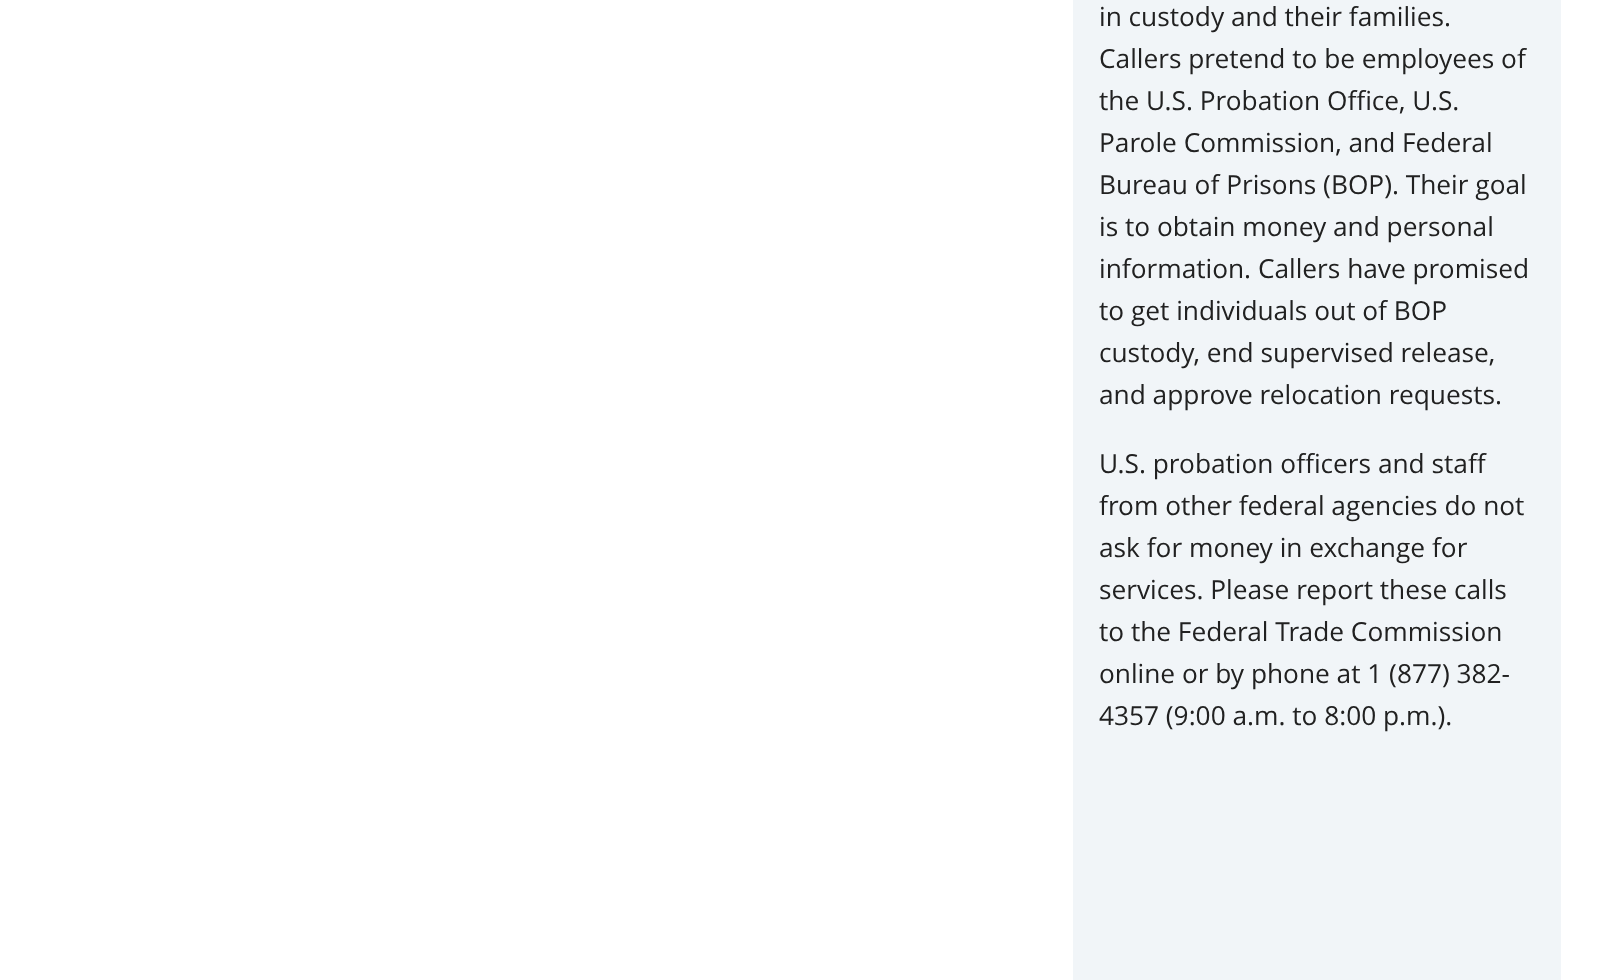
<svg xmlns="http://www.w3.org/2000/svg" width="1607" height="980">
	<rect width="100%" height="100%" fill="#FFFFFF" />
	<rect x="1073" y="0" width="488" height="980" fill="#F1F5F8" />
	<g font-family="Open Sans" font-size="26.25" fill="#212121">
		<text x="1099" y="26">in custody and their families.</text>
		<text x="1099" y="68">Callers pretend to be employees of</text>
		<text x="1099" y="110">the U.S. Probation Office, U.S.</text>
		<text x="1099" y="152">Parole Commission, and Federal</text>
		<text x="1099" y="194">Bureau of Prisons (BOP). Their goal</text>
		<text x="1099" y="236">is to obtain money and personal</text>
		<text x="1099" y="278">information. Callers have promised</text>
		<text x="1099" y="320">to get individuals out of BOP</text>
		<text x="1099" y="362">custody, end supervised release,</text>
		<text x="1099" y="404">and approve relocation requests.</text>
		<text x="1099" y="473">U.S. probation officers and staff</text>
		<text x="1099" y="515">from other federal agencies do not</text>
		<text x="1099" y="557">ask for money in exchange for</text>
		<text x="1099" y="599">services. Please report these calls</text>
		<text x="1099" y="641">to the Federal Trade Commission</text>
		<text x="1099" y="683">online or by phone at 1 (877) 382-</text>
		<text x="1099" y="725">4357 (9:00 a.m. to 8:00 p.m.).</text>
	</g>
</svg>
